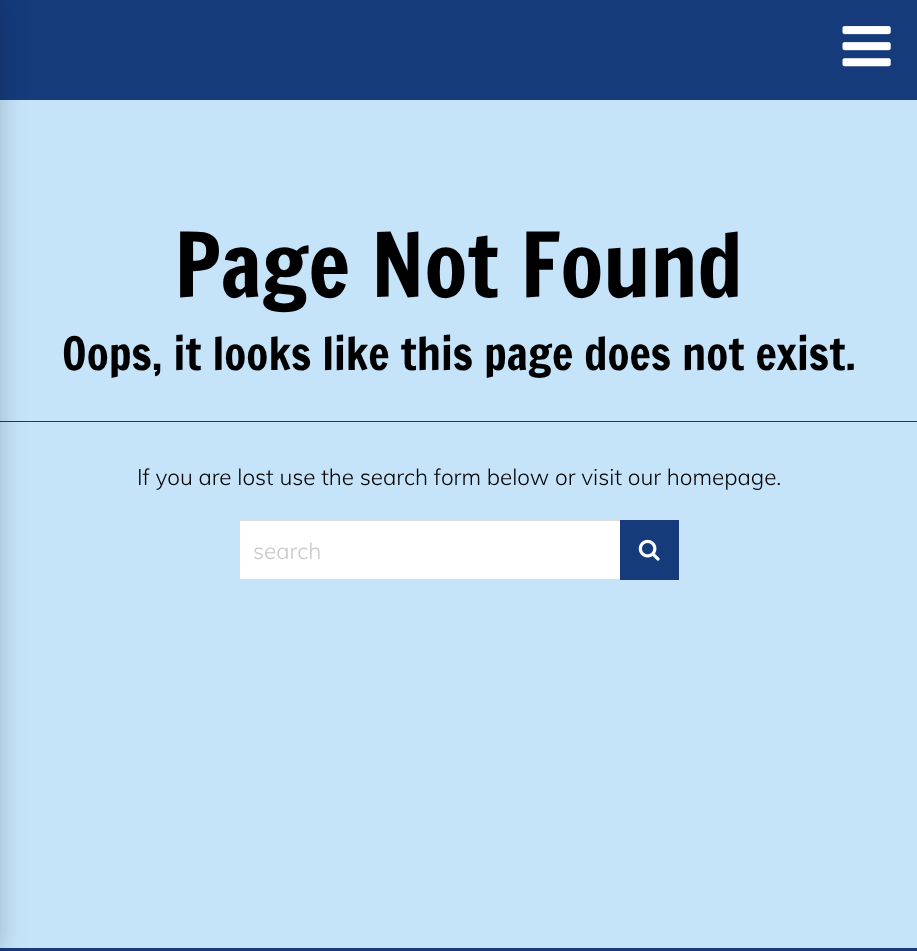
<svg xmlns="http://www.w3.org/2000/svg" width="917" height="951">
	<rect width="100%" height="100%" fill="#C5E3F9" />
	<rect x="0" y="0" width="917" height="100" fill="#153B7B" />
	<rect x="0" y="421" width="917" height="1" fill="#153B7B" />
	<rect x="0" y="948" width="917" height="3" fill="#153B7B" />
	<rect x="-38" y="0" width="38" height="951" fill="#000000" fill-opacity="0.2" filter="blur(12.5px)" />
	<image x="842" y="26" width="49" height="41" href="assets/img1.png" />
	<text x="174" y="297" font-family="Francois One" font-size="87.5" fill="#000000">Page Not Found</text>
	<text x="62" y="370" font-family="Francois One" font-size="45" fill="#000000">Oops, it looks like this page does not exist.</text>
	<text x="137" y="485" font-family="Muli" font-size="22.5" font-weight="300" fill="#000000">If you are lost use the search form below or visit our homepage.</text>
	<rect x="240" y="521" width="380" height="58" fill="#FFFFFF" />
	<rect x="239" y="520" width="381" height="1" fill="#DDDDDD" />
	<rect x="239" y="579" width="381" height="1" fill="#DDDDDD" />
	<rect x="239" y="520" width="1" height="60" fill="#DDDDDD" />
	<text x="253" y="559" font-family="Muli" font-size="22.5" font-weight="300" fill="#C8C8C8">search</text>
	<rect x="620" y="520" width="59" height="60" fill="#153B7B" />
	<image x="638" y="539" width="22" height="22" href="assets/img2.png" />
</svg>
